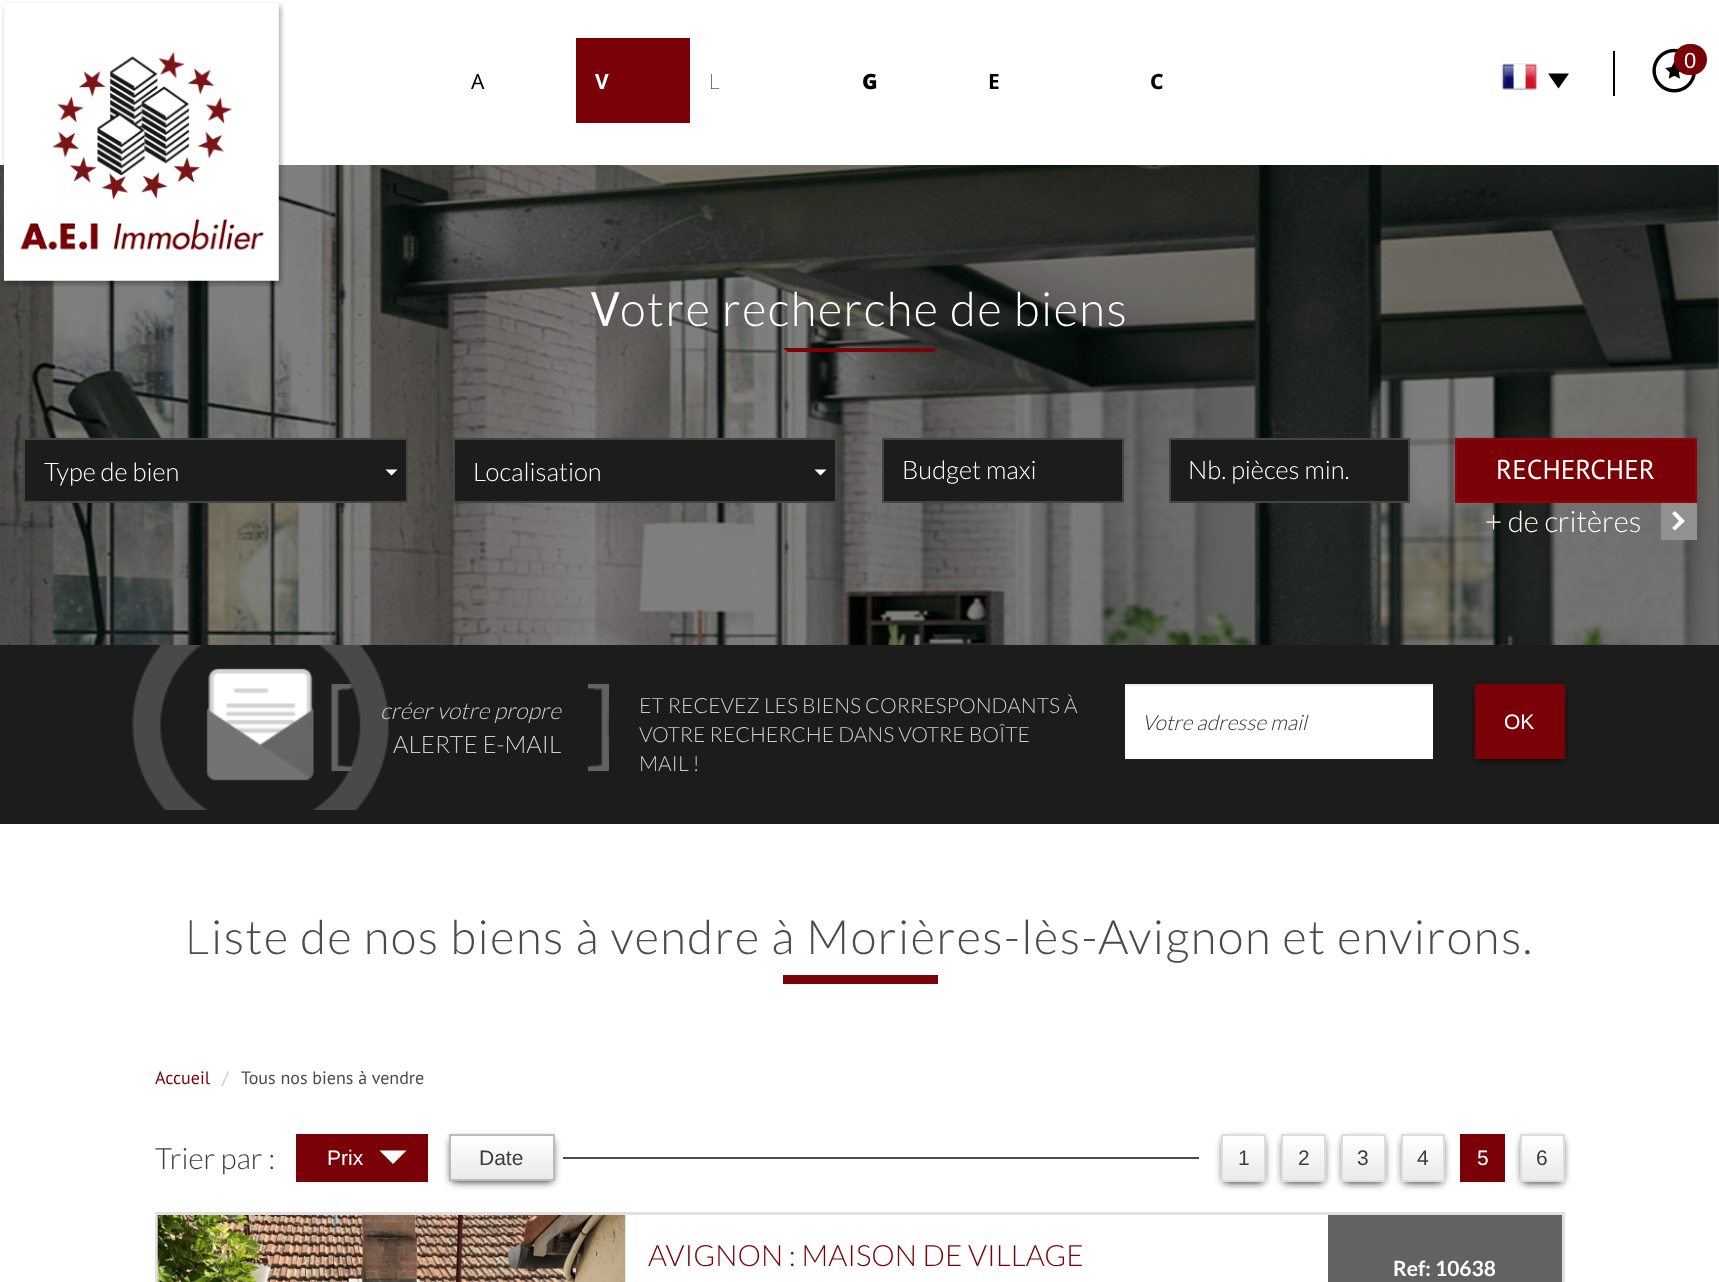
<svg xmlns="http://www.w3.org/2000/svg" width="1719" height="1282">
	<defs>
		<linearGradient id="g1" gradientUnits="userSpaceOnUse" x1="502" y1="1136" x2="502" y2="1179"><stop offset="0" stop-color="#FFFFFF" /><stop offset="1" stop-color="#EAEAEA" /></linearGradient>
		<linearGradient id="g2" gradientUnits="userSpaceOnUse" x1="1244" y1="1136" x2="1244" y2="1181"><stop offset="0" stop-color="#FFFFFF" /><stop offset="1" stop-color="#EAEAEA" /></linearGradient>
		<linearGradient id="g3" gradientUnits="userSpaceOnUse" x1="1304" y1="1136" x2="1304" y2="1181"><stop offset="0" stop-color="#FFFFFF" /><stop offset="1" stop-color="#EAEAEA" /></linearGradient>
		<linearGradient id="g4" gradientUnits="userSpaceOnUse" x1="1364" y1="1136" x2="1364" y2="1181"><stop offset="0" stop-color="#FFFFFF" /><stop offset="1" stop-color="#EAEAEA" /></linearGradient>
		<linearGradient id="g5" gradientUnits="userSpaceOnUse" x1="1423" y1="1136" x2="1423" y2="1181"><stop offset="0" stop-color="#FFFFFF" /><stop offset="1" stop-color="#EAEAEA" /></linearGradient>
		<linearGradient id="g6" gradientUnits="userSpaceOnUse" x1="1542" y1="1136" x2="1542" y2="1181"><stop offset="0" stop-color="#FFFFFF" /><stop offset="1" stop-color="#EAEAEA" /></linearGradient>
	</defs>
	<rect width="100%" height="100%" fill="#FFFFFF" />
	<image x="0" y="165" width="1719" height="480" href="assets/img1.png" />
	<rect x="0" y="165" width="1719" height="480" fill="#000000" fill-opacity="0.5" />
	<image x="1" y="1" width="284" height="286" href="assets/img2.png" />
	<image x="1501" y="63" width="37" height="27" href="assets/img3.png" />
	<path d="M1548 73.5H1569L1558.5 88.5Z" fill="#000000" />
	<rect x="1613" y="51" width="2" height="45" fill="#000000" />
	<image x="1652" y="48" width="44" height="45" href="assets/img4.png" />
	<rect x="1674" y="44" width="33" height="31" rx="15.5" fill="#7A0108" />
	<text x="1684" y="68" font-family="Liberation Sans" font-size="22" fill="#FFFFFF">0</text>
	<text x="471" y="89" font-family="Noto Sans" font-size="21" fill="#000000">A</text>
	<rect x="576" y="38" width="114" height="85" fill="#7A0108" />
	<text x="595" y="89" font-family="Noto Sans" font-size="21" font-weight="700" fill="#FFFFFF">V</text>
	<text x="709" y="89" font-family="Noto Sans" font-size="21" font-weight="100" fill="#000000">L</text>
	<text x="862" y="89" font-family="Noto Sans" font-size="21" font-weight="900" fill="#000000">G</text>
	<text x="988" y="89" font-family="Noto Sans" font-size="21" font-weight="700" fill="#000000">E</text>
	<text x="1150" y="89" font-family="Noto Sans" font-size="21" font-weight="800" fill="#000000">C</text>
	<text x="591" y="326" font-family="Noto Sans" font-size="47.25" letter-spacing="1.5" fill="#FFFFFF">V</text>
	<text x="620" y="326" font-family="Lato" font-size="47.25" font-weight="300" letter-spacing="1.5" fill="#FFFFFF">otre recherche de biens</text>
	<path d="M783 348H938L933 352H788Z" fill="#7A0108" />
	<rect x="24" y="439" width="383" height="63" fill="#1C1C1C" stroke="#444444" stroke-width="2" />
	<text x="44" y="481" font-family="Lato" font-size="25.5" font-weight="300" fill="#FFFFFF">Type de bien</text>
	<path d="M385.5 469.5H397.5L391.5 475.5Z" fill="#FFFFFF" />
	<rect x="454" y="439" width="382" height="63" fill="#1C1C1C" stroke="#444444" stroke-width="2" />
	<text x="473" y="481" font-family="Lato" font-size="25.5" font-weight="300" fill="#FFFFFF">Localisation</text>
	<path d="M814.5 469.5H826.5L820.5 475.5Z" fill="#FFFFFF" />
	<rect x="883" y="439" width="240" height="63" fill="#1C1C1C" stroke="#444444" stroke-width="2" />
	<text x="902" y="479" font-family="Lato" font-size="25.5" font-weight="300" fill="#FFFFFF">Budget maxi</text>
	<rect x="1170" y="439" width="239" height="63" fill="#1C1C1C" stroke="#444444" stroke-width="2" />
	<text x="1188" y="479" font-family="Lato" font-size="25.5" font-weight="300" fill="#FFFFFF">Nb. pièces min.</text>
	<rect x="1456" y="439" width="240" height="63" fill="#7A0108" stroke="#93010A" stroke-width="2" />
	<text x="1496" y="479" font-family="PT Sans" font-size="27.25" fill="#FFFFFF">RECHERCHER</text>
	<text x="1485" y="532" font-family="Lato" font-size="29.4" font-weight="300" fill="#FFFFFF">+ de critères</text>
	<rect x="1661" y="503" width="36" height="37" fill="#919191" />
	<path d="M1675 530.5L1685 521L1675 511L1672 513.5L1679 521L1672 528Z" fill="#FFFFFF" />
	<rect x="0" y="645" width="1719" height="179" fill="#1C1C1C" />
	<image x="132" y="645" width="257" height="165" href="assets/img5.png" />
	<image x="331" y="684" width="22" height="87" href="assets/img6.png" />
	<text x="380" y="719" font-family="Lato" font-size="23" font-weight="300" font-style="italic" fill="#CCCCCC">créer votre propre</text>
	<text x="393" y="753" font-family="Lato" font-size="24" font-weight="300" fill="#CCCCCC">ALERTE E-MAIL</text>
	<image x="588" y="684" width="21" height="87" href="assets/img7.png" />
	<g font-family="Lato" font-size="21" font-weight="300" fill="#CCCCCC">
		<text x="639" y="713">ET RECEVEZ LES BIENS CORRESPONDANTS À</text>
		<text x="639" y="742">VOTRE RECHERCHE DANS VOTRE BOÎTE</text>
		<text x="639" y="771">MAIL !</text>
	</g>
	<rect x="1125" y="686" width="308" height="73" fill="#FFFFFF" />
	<rect x="1125" y="684" width="308" height="2" fill="#ECECEC" />
	<text x="1142" y="730" font-family="Lato" font-size="21" font-weight="300" font-style="italic" fill="#333333">Votre adresse mail</text>
	<rect x="1478" y="690" width="84" height="69" fill="#000000" filter="blur(4px)" />
	<rect x="1475" y="684" width="90" height="75" fill="#7A0108" />
	<text x="1504" y="729" font-family="Liberation Sans" font-size="21" fill="#FFFFFF">OK</text>
	<text x="185" y="954" font-family="Noto Sans" font-size="47.25" font-weight="200" letter-spacing="1.5" fill="#4B4B4B">L</text>
	<text x="211" y="954" font-family="Lato" font-size="47.25" font-weight="300" letter-spacing="1.5" fill="#4B4B4B">iste de nos biens à vendre à Morières-lès-Avignon et environs.</text>
	<rect x="783" y="975" width="155" height="9" fill="#7A0108" />
	<text x="155" y="1084" font-family="PT Sans" font-size="18" fill="#7A0108">Accueil</text>
	<text x="222" y="1084" font-family="PT Sans" font-size="18" fill="#CCCCCC">/</text>
	<text x="241" y="1084" font-family="PT Sans" font-size="18" fill="#4B4B4B">Tous nos biens à vendre</text>
	<text x="155" y="1169" font-family="Lato" font-size="29.4" font-weight="300" fill="#3C3C3C">Trier par :</text>
	<rect x="296" y="1134" width="132" height="48" fill="#7A0108" />
	<text x="327" y="1165" font-family="Liberation Sans" font-size="21" fill="#FFFFFF">Prix</text>
	<path d="M379.5 1150.5H406.5L393 1164Z" fill="#FFFFFF" />
	<rect x="452" y="1140" width="100" height="41" fill="#000000" filter="blur(4px)" />
	<rect x="451" y="1136" width="102" height="43" fill="url(#g1)" />
	<rect x="450" y="1135" width="104" height="45" fill="none" stroke="#BCBBBB" stroke-width="2" />
	<text x="479" y="1165" font-family="Liberation Sans" font-size="21" fill="#3C3C3C">Date</text>
	<rect x="563" y="1157" width="636" height="2" fill="#4B4B4B" />
	<rect x="1224" y="1140" width="39" height="42" fill="#000000" filter="blur(4px)" />
	<rect x="1223" y="1136" width="41" height="44" fill="url(#g2)" />
	<rect x="1222" y="1135" width="43" height="46" fill="none" stroke="#DDDDDD" stroke-width="2" />
	<text x="1238" y="1165" font-family="Liberation Sans" font-size="21" fill="#3C3C3C">1</text>
	<rect x="1284" y="1140" width="39" height="42" fill="#000000" filter="blur(4px)" />
	<rect x="1283" y="1136" width="41" height="44" fill="url(#g3)" />
	<rect x="1282" y="1135" width="43" height="46" fill="none" stroke="#DDDDDD" stroke-width="2" />
	<text x="1298" y="1165" font-family="Liberation Sans" font-size="21" fill="#3C3C3C">2</text>
	<rect x="1344" y="1140" width="39" height="42" fill="#000000" filter="blur(4px)" />
	<rect x="1343" y="1136" width="41" height="44" fill="url(#g4)" />
	<rect x="1342" y="1135" width="43" height="46" fill="none" stroke="#DDDDDD" stroke-width="2" />
	<text x="1357" y="1165" font-family="Liberation Sans" font-size="21" fill="#3C3C3C">3</text>
	<rect x="1404" y="1140" width="38" height="42" fill="#000000" filter="blur(4px)" />
	<rect x="1403" y="1136" width="40" height="44" fill="url(#g5)" />
	<rect x="1402" y="1135" width="42" height="46" fill="none" stroke="#DDDDDD" stroke-width="2" />
	<text x="1417" y="1165" font-family="Liberation Sans" font-size="21" fill="#3C3C3C">4</text>
	<rect x="1460" y="1134" width="45" height="48" fill="#7A0108" />
	<text x="1477" y="1165" font-family="Liberation Sans" font-size="21" fill="#FFFFFF">5</text>
	<rect x="1523" y="1140" width="39" height="42" fill="#000000" filter="blur(4px)" />
	<rect x="1522" y="1136" width="41" height="44" fill="url(#g6)" />
	<rect x="1521" y="1135" width="43" height="46" fill="none" stroke="#DDDDDD" stroke-width="2" />
	<text x="1536" y="1165" font-family="Liberation Sans" font-size="21" fill="#3C3C3C">6</text>
	<rect x="156.5" y="1213.5" width="1407" height="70" fill="none" stroke="#E0E0E0" stroke-width="3" />
	<image x="157" y="1215" width="469" height="67" href="assets/img8.png" />
	<text x="648" y="1266" font-family="Lato" font-size="29.4" font-weight="300" fill="#7A0108">AVIGNON : MAISON DE VILLAGE</text>
	<rect x="1328" y="1215" width="234" height="67" fill="#626262" />
	<text x="1393" y="1276" font-family="Lato" font-size="21" font-weight="700" fill="#FFFFFF">Ref: 10638</text>
</svg>
